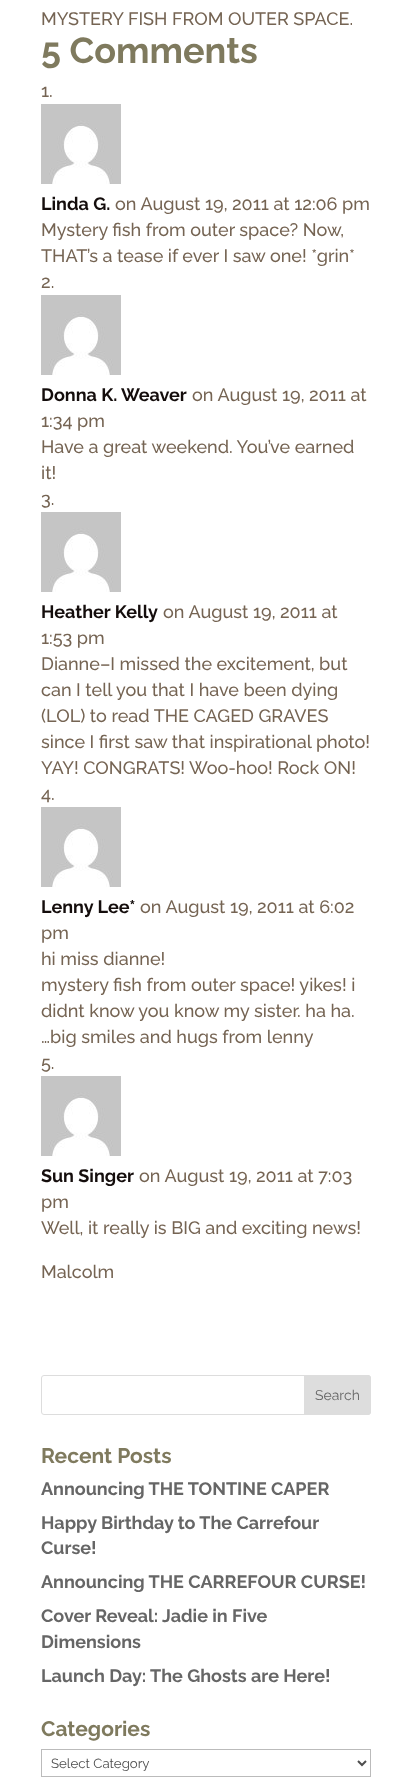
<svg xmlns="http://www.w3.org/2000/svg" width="412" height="1780">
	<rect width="100%" height="100%" fill="#FFFFFF" />
	<text x="41" y="25" font-family="Raleway" font-size="18" font-weight="100" fill="#756453">MYSTERY FISH FROM OUTER SPACE.</text>
	<text x="41" y="63" font-family="'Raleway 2'" font-size="36" font-weight="100" fill="#7F7A5E">5 Comments</text>
	<text x="41" y="97" font-family="Raleway" font-size="18" font-weight="100" fill="#756453">1.</text>
	<image x="41" y="104" width="80" height="80" href="assets/img1.png" />
	<text x="41" y="210" font-family="'Raleway 2'" font-size="18" font-weight="100" fill="#140D0C">Linda G.</text>
	<g font-family="Raleway" font-size="18" font-weight="100" fill="#756453">
		<text x="115" y="210">on August 19, 2011 at 12:06 pm</text>
		<text x="41" y="236">Mystery fish from outer space? Now,</text>
		<text x="41" y="262">THAT’s a tease if ever I saw one! *grin*</text>
		<text x="41" y="288">2.</text>
	</g>
	<image x="41" y="295" width="80" height="80" href="assets/img1.png" />
	<text x="41" y="401" font-family="'Raleway 2'" font-size="18" font-weight="100" fill="#140D0C">Donna K. Weaver</text>
	<g font-family="Raleway" font-size="18" font-weight="100" fill="#756453">
		<text x="192" y="401">on August 19, 2011 at</text>
		<text x="41" y="427">1:34 pm</text>
		<text x="41" y="453">Have a great weekend. You’ve earned</text>
		<text x="41" y="479">it!</text>
		<text x="41" y="505">3.</text>
	</g>
	<image x="41" y="512" width="80" height="80" href="assets/img1.png" />
	<text x="41" y="618" font-family="'Raleway 2'" font-size="18" font-weight="100" fill="#140D0C">Heather Kelly</text>
	<g font-family="Raleway" font-size="18" font-weight="100" fill="#756453">
		<text x="163" y="618">on August 19, 2011 at</text>
		<text x="41" y="644">1:53 pm</text>
		<text x="41" y="670">Dianne–I missed the excitement, but</text>
		<text x="41" y="696">can I tell you that I have been dying</text>
		<text x="41" y="722">(LOL) to read THE CAGED GRAVES</text>
		<text x="41" y="748">since I first saw that inspirational photo!</text>
		<text x="41" y="774">YAY! CONGRATS! Woo-hoo! Rock ON!</text>
		<text x="41" y="800">4.</text>
	</g>
	<image x="41" y="807" width="80" height="80" href="assets/img1.png" />
	<text x="41" y="913" font-family="'Raleway 2'" font-size="18" font-weight="100" fill="#140D0C">Lenny Lee*</text>
	<g font-family="Raleway" font-size="18" font-weight="100" fill="#756453">
		<text x="140" y="913">on August 19, 2011 at 6:02</text>
		<text x="41" y="939">pm</text>
		<text x="41" y="965">hi miss dianne!</text>
		<text x="41" y="991">mystery fish from outer space! yikes! i</text>
		<text x="41" y="1017">didnt know you know my sister. ha ha.</text>
		<text x="41" y="1043">…big smiles and hugs from lenny</text>
		<text x="41" y="1069">5.</text>
	</g>
	<image x="41" y="1076" width="80" height="80" href="assets/img1.png" />
	<text x="41" y="1182" font-family="'Raleway 2'" font-size="18" font-weight="100" fill="#140D0C">Sun Singer</text>
	<g font-family="Raleway" font-size="18" font-weight="100" fill="#756453">
		<text x="139" y="1182">on August 19, 2011 at 7:03</text>
		<text x="41" y="1208">pm</text>
		<text x="41" y="1234">Well, it really is BIG and exciting news!</text>
		<text x="41" y="1278">Malcolm</text>
	</g>
	<rect x="41.5" y="1375.5" width="329" height="39" rx="2.5" fill="none" stroke="#DDDDDD" />
	<path d="M304.5 1375.5H368C369.5 1375.5 370.5 1376.5 370.5 1378V1412C370.5 1413.5 369.5 1414.5 368 1414.5H304.5Z" fill="#DDDDDD" stroke="#DDDDDD" />
	<text x="315" y="1400" font-family="'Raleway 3'" font-size="14" font-weight="100" fill="#666666">Search</text>
	<text x="41" y="1463" font-family="'Raleway 2'" font-size="21" font-weight="100" fill="#7F7A5E">Recent Posts</text>
	<g font-family="'Raleway 2'" font-size="18" font-weight="100" fill="#666666">
		<text x="41" y="1495">Announcing THE TONTINE CAPER</text>
		<text x="41" y="1529">Happy Birthday to The Carrefour</text>
		<text x="41" y="1554">Curse!</text>
		<text x="41" y="1588">Announcing THE CARREFOUR CURSE!</text>
		<text x="41" y="1622">Cover Reveal: Jadie in Five</text>
		<text x="41" y="1648">Dimensions</text>
		<text x="41" y="1682">Launch Day: The Ghosts are Here!</text>
	</g>
	<text x="41" y="1736" font-family="'Raleway 2'" font-size="21" font-weight="100" fill="#7F7A5E">Categories</text>
	<rect x="41.5" y="1749.5" width="329" height="27" fill="none" stroke="#BBBBBB" />
	<path d="M358 1761L362 1765L366 1761" fill="none" stroke="#4E4E4E" stroke-width="2" />
	<text x="51" y="1768" font-family="'Raleway 3'" font-size="13.25" font-weight="100" fill="#4E4E4E">Select Category</text>
</svg>
